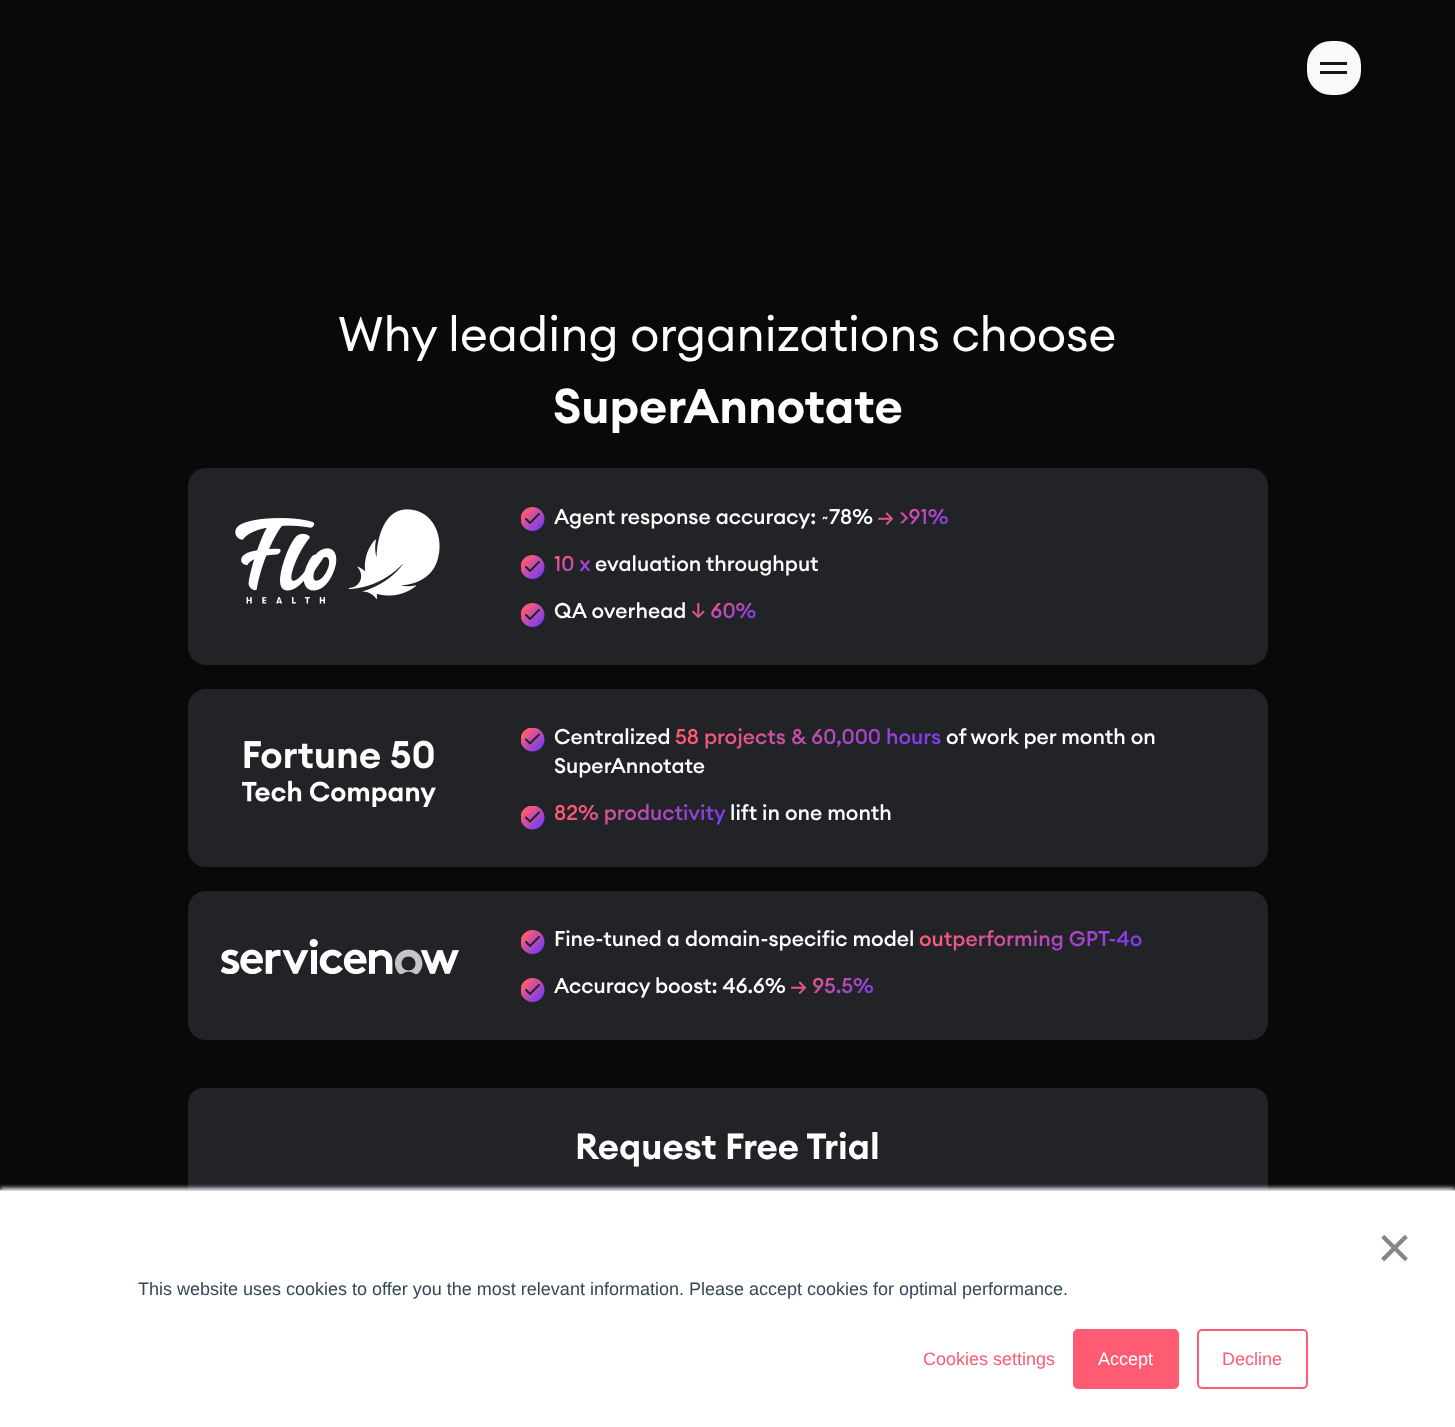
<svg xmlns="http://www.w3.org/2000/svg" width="1455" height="1427">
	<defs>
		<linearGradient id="g1" gradientUnits="userSpaceOnUse" x1="900" y1="494" x2="927" y2="541"><stop offset="0.1" stop-color="#FF5B72" /><stop offset="0.9" stop-color="#803DED" /></linearGradient>
		<linearGradient id="g2" gradientUnits="userSpaceOnUse" x1="563" y1="549" x2="581" y2="581"><stop offset="0.1" stop-color="#FF5B72" /><stop offset="0.9" stop-color="#803DED" /></linearGradient>
		<linearGradient id="g3" gradientUnits="userSpaceOnUse" x1="711" y1="590" x2="736" y2="634"><stop offset="0.1" stop-color="#FF5B72" /><stop offset="0.9" stop-color="#803DED" /></linearGradient>
		<linearGradient id="g4" gradientUnits="userSpaceOnUse" x1="770" y1="672" x2="846" y2="803"><stop offset="0.1" stop-color="#FF5B72" /><stop offset="0.9" stop-color="#803DED" /></linearGradient>
		<linearGradient id="g5" gradientUnits="userSpaceOnUse" x1="613" y1="770" x2="665" y2="859"><stop offset="0.1" stop-color="#FF5B72" /><stop offset="0.9" stop-color="#803DED" /></linearGradient>
		<linearGradient id="g6" gradientUnits="userSpaceOnUse" x1="998" y1="884" x2="1063" y2="996"><stop offset="0.1" stop-color="#FF5B72" /><stop offset="0.9" stop-color="#803DED" /></linearGradient>
		<linearGradient id="g7" gradientUnits="userSpaceOnUse" x1="817" y1="961" x2="847" y2="1013"><stop offset="0.1" stop-color="#FF5B72" /><stop offset="0.9" stop-color="#803DED" /></linearGradient>
	</defs>
	<rect width="100%" height="100%" fill="#09090A" />
	<rect x="1307" y="41" width="54" height="54" rx="24" fill="#F9F9FA" />
	<rect x="1320" y="62" width="27" height="3" fill="#141518" />
	<rect x="1320" y="71" width="27" height="3" fill="#141518" />
	<text x="338" y="351" font-family="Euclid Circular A" font-size="48" fill="#FFFFFF">Why leading organizations choose</text>
	<text x="553" y="423" font-family="Euclid Circular A" font-size="48" font-weight="600" fill="#FFFFFF">SuperAnnotate</text>
	<rect x="188" y="468" width="1080" height="197" rx="18" fill="#222327" />
	<image x="235" y="509" width="205" height="95" href="assets/img1.png" />
	<image x="521" y="507" width="24" height="24" href="assets/img2.png" />
	<text x="554" y="524" font-family="Euclid Circular A" font-size="21" font-weight="500" fill="#FFFFFF">Agent response accuracy: ~78%</text>
	<text x="877" y="524" font-family="Euclid Circular A" font-size="21" font-weight="500" fill="url(#g1)">→ &gt;91%</text>
	<image x="521" y="555" width="24" height="24" href="assets/img2.png" />
	<text x="554" y="571" font-family="Euclid Circular A" font-size="21" font-weight="500" fill="url(#g2)">10 x</text>
	<text x="595" y="571" font-family="Euclid Circular A" font-size="21" font-weight="500" fill="#FFFFFF">evaluation throughput</text>
	<image x="521" y="603" width="24" height="24" href="assets/img2.png" />
	<text x="554" y="618" font-family="Euclid Circular A" font-size="21" font-weight="500" fill="#FFFFFF">QA overhead</text>
	<text x="691" y="618" font-family="Euclid Circular A" font-size="21" font-weight="500" fill="url(#g3)">↓ 60%</text>
	<rect x="188" y="689" width="1080" height="178" rx="18" fill="#222327" />
	<image x="242" y="740" width="194" height="67" href="assets/img3.png" />
	<image x="521" y="728" width="24" height="24" href="assets/img4.png" />
	<text x="554" y="744" font-family="Euclid Circular A" font-size="21" font-weight="500" fill="#FFFFFF">Centralized</text>
	<text x="675" y="744" font-family="Euclid Circular A" font-size="21" font-weight="500" fill="url(#g4)">58 projects &amp; 60,000 hours</text>
	<g font-family="Euclid Circular A" font-size="21" font-weight="500" fill="#FFFFFF">
		<text x="946" y="744">of work per month on</text>
		<text x="554" y="773">SuperAnnotate</text>
	</g>
	<image x="521" y="806" width="24" height="24" href="assets/img4.png" />
	<text x="554" y="820" font-family="Euclid Circular A" font-size="21" font-weight="500" fill="url(#g5)">82% productivity</text>
	<text x="730" y="820" font-family="Euclid Circular A" font-size="21" font-weight="500" fill="#FFFFFF">lift in one month</text>
	<rect x="188" y="891" width="1080" height="149" rx="18" fill="#222327" />
	<image x="221" y="939" width="238" height="35" href="assets/img5.png" />
	<image x="521" y="930" width="24" height="24" href="assets/img2.png" />
	<text x="554" y="946" font-family="Euclid Circular A" font-size="21" font-weight="500" fill="#FFFFFF">Fine-tuned a domain-specific model</text>
	<text x="919" y="946" font-family="Euclid Circular A" font-size="21" font-weight="500" fill="url(#g6)">outperforming GPT-4o</text>
	<image x="521" y="978" width="24" height="24" href="assets/img2.png" />
	<text x="554" y="993" font-family="Euclid Circular A" font-size="21" font-weight="500" fill="#FFFFFF">Accuracy boost: 46.6%</text>
	<text x="790" y="993" font-family="Euclid Circular A" font-size="21" font-weight="500" fill="url(#g7)">→ 95.5%</text>
	<rect x="188" y="1088" width="1080" height="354" rx="15" fill="#222327" />
	<text x="575" y="1159" font-family="Euclid Circular A" font-size="36" font-weight="600" fill="#FFFFFF">Request Free Trial</text>
	<rect x="0" y="1188" width="1455" height="239" fill="#EAF0F6" filter="blur(2px)" />
	<rect x="0" y="1190" width="1455" height="1" fill="#CBD6E2" />
	<rect x="0" y="1191" width="1455" height="236" fill="#FFFFFF" />
	<text x="1377" y="1268" font-family="Liberation Sans" font-size="60" fill="#8B8589">×</text>
	<text x="138" y="1295" font-family="Liberation Sans" font-size="18" fill="#33475B">This website uses cookies to offer you the most relevant information. Please accept cookies for optimal performance.</text>
	<text x="923" y="1365" font-family="Liberation Sans" font-size="18" fill="#FF5B72">Cookies settings</text>
	<rect x="1074" y="1330" width="104" height="58" rx="4" fill="#FF5B72" stroke="#FF5B72" stroke-width="2" />
	<text x="1098" y="1365" font-family="Liberation Sans" font-size="18" fill="#FFFFFF">Accept</text>
	<rect x="1198" y="1330" width="109" height="58" rx="4" fill="none" stroke="#FF5B72" stroke-width="2" />
	<text x="1222" y="1365" font-family="Liberation Sans" font-size="18" fill="#FF5B72">Decline</text>
</svg>
